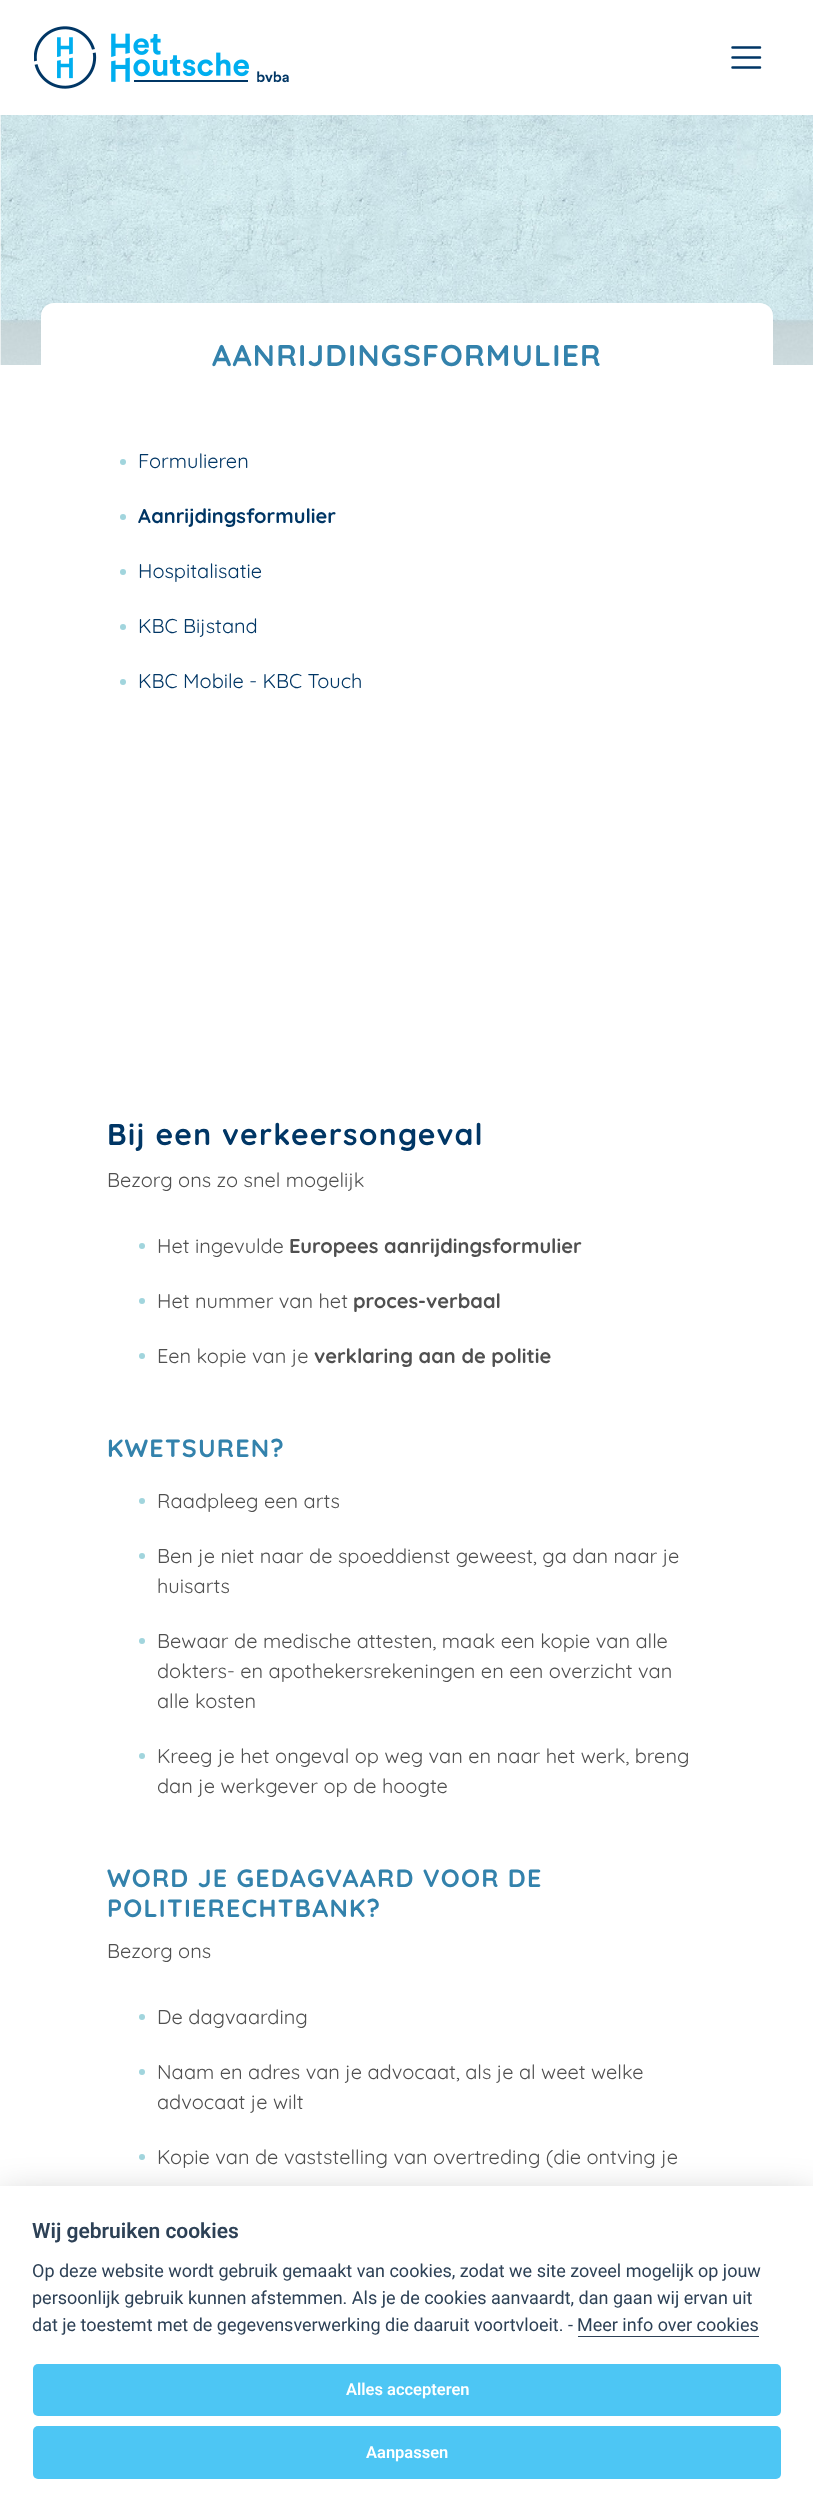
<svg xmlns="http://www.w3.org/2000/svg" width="813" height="2511">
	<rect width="100%" height="100%" fill="#FFFFFF" />
	<image x="34" y="26" width="255" height="63" href="assets/img1.png" />
	<path d="M732.5 47.5H760M732.5 57.5H760M732.5 67.5H760" fill="none" stroke="#003665" stroke-width="2.5" stroke-linecap="round" />
	<image x="0" y="115" width="813" height="250" href="assets/img2.png" />
	<rect x="41" y="303" width="732" height="106" rx="13" fill="#FFFFFF" />
	<text x="212" y="366" font-family="Quicksand" font-size="30" font-weight="700" letter-spacing="1.25" fill="#3382AC">AANRIJDINGSFORMULIER</text>
	<circle cx="123" cy="462" r="3" fill="#A1D5DD" />
	<text x="138" y="468" font-family="Quicksand" font-size="20" fill="#003665">Formulieren</text>
	<circle cx="123" cy="517" r="3" fill="#A1D5DD" />
	<text x="138" y="523" font-family="Quicksand" font-size="20" font-weight="700" fill="#003665">Aanrijdingsformulier</text>
	<circle cx="123" cy="572" r="3" fill="#A1D5DD" />
	<text x="138" y="578" font-family="Quicksand" font-size="20" fill="#003665">Hospitalisatie</text>
	<circle cx="123" cy="627" r="3" fill="#A1D5DD" />
	<text x="138" y="633" font-family="Quicksand" font-size="20" fill="#003665">KBC Bijstand</text>
	<circle cx="123" cy="682" r="3" fill="#A1D5DD" />
	<text x="138" y="688" font-family="Quicksand" font-size="20" fill="#003665">KBC Mobile - KBC Touch</text>
	<text x="107" y="1145" font-family="Quicksand" font-size="30" font-weight="700" letter-spacing="1.25" fill="#003665">Bij een verkeersongeval</text>
	<text x="107" y="1187" font-family="Quicksand" font-size="20" fill="#505050">Bezorg ons zo snel mogelijk</text>
	<circle cx="142" cy="1246" r="3" fill="#A1D5DD" />
	<text x="157" y="1253" font-family="Quicksand" font-size="20" fill="#505050">Het ingevulde</text>
	<text x="289" y="1253" font-family="Quicksand" font-size="20" font-weight="700" fill="#505050">Europees aanrijdingsformulier</text>
	<circle cx="142" cy="1301" r="3" fill="#A1D5DD" />
	<text x="157" y="1308" font-family="Quicksand" font-size="20" fill="#505050">Het nummer van het</text>
	<text x="353" y="1308" font-family="Quicksand" font-size="20" font-weight="700" fill="#505050">proces-verbaal</text>
	<circle cx="142" cy="1356" r="3" fill="#A1D5DD" />
	<text x="157" y="1363" font-family="Quicksand" font-size="20" fill="#505050">Een kopie van je</text>
	<text x="314" y="1363" font-family="Quicksand" font-size="20" font-weight="700" fill="#505050">verklaring aan de politie</text>
	<text x="107" y="1457" font-family="Quicksand" font-size="25" font-weight="700" letter-spacing="1.25" fill="#3382AC">KWETSUREN?</text>
	<circle cx="142" cy="1501" r="3" fill="#A1D5DD" />
	<text x="157" y="1508" font-family="Quicksand" font-size="20" fill="#505050">Raadpleeg een arts</text>
	<circle cx="142" cy="1556" r="3" fill="#A1D5DD" />
	<g font-family="Quicksand" font-size="20" fill="#505050">
		<text x="157" y="1563">Ben je niet naar de spoeddienst geweest, ga dan naar je</text>
		<text x="157" y="1593">huisarts</text>
	</g>
	<circle cx="142" cy="1641" r="3" fill="#A1D5DD" />
	<g font-family="Quicksand" font-size="20" fill="#505050">
		<text x="157" y="1648">Bewaar de medische attesten, maak een kopie van alle</text>
		<text x="157" y="1678">dokters- en apothekersrekeningen en een overzicht van</text>
		<text x="157" y="1708">alle kosten</text>
	</g>
	<circle cx="142" cy="1756" r="3" fill="#A1D5DD" />
	<g font-family="Quicksand" font-size="20" fill="#505050">
		<text x="157" y="1763">Kreeg je het ongeval op weg van en naar het werk, breng</text>
		<text x="157" y="1793">dan je werkgever op de hoogte</text>
	</g>
	<g font-family="Quicksand" font-size="25" font-weight="700" letter-spacing="1.25" fill="#3382AC">
		<text x="107" y="1887">WORD JE GEDAGVAARD VOOR DE</text>
		<text x="107" y="1917">POLITIERECHTBANK?</text>
	</g>
	<text x="107" y="1958" font-family="Quicksand" font-size="20" fill="#505050">Bezorg ons</text>
	<circle cx="142" cy="2017" r="3" fill="#A1D5DD" />
	<text x="157" y="2024" font-family="Quicksand" font-size="20" fill="#505050">De dagvaarding</text>
	<circle cx="142" cy="2072" r="3" fill="#A1D5DD" />
	<g font-family="Quicksand" font-size="20" fill="#505050">
		<text x="157" y="2079">Naam en adres van je advocaat, als je al weet welke</text>
		<text x="157" y="2109">advocaat je wilt</text>
	</g>
	<circle cx="142" cy="2157" r="3" fill="#A1D5DD" />
	<text x="157" y="2164" font-family="Quicksand" font-size="20" fill="#505050">Kopie van de vaststelling van overtreding (die ontving je</text>
	<rect x="0" y="2199" width="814" height="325" fill="#020203" fill-opacity="0.28" filter="blur(19px)" />
	<rect x="0" y="2186" width="813" height="325" fill="#FFFFFF" />
	<text x="32" y="2238" font-family="Roboto" font-size="21" font-weight="600" fill="#2D4156">Wij gebruiken cookies</text>
	<g font-family="Roboto" font-size="18" fill="#2D4156">
		<text x="32" y="2277">Op deze website wordt gebruik gemaakt van cookies, zodat we site zoveel mogelijk op jouw</text>
		<text x="32" y="2304">persoonlijk gebruik kunnen afstemmen. Als je de cookies aanvaardt, dan gaan wij ervan uit</text>
		<text x="32" y="2331">dat je toestemt met de gegevensverwerking die daaruit voortvloeit. -</text>
		<text x="577" y="2331">Meer info over cookies</text>
	</g>
	<rect x="578" y="2336" width="181" height="1" fill="#2D4156" />
	<rect x="33" y="2364" width="748" height="52" rx="5" fill="#4DC6F4" />
	<text x="346" y="2395" font-family="Roboto" font-size="16.5" font-weight="600" fill="#FFFFFF">Alles accepteren</text>
	<rect x="33" y="2426" width="748" height="53" rx="5" fill="#4DC6F4" />
	<text x="366" y="2458" font-family="Roboto" font-size="16.5" font-weight="600" fill="#FFFFFF">Aanpassen</text>
</svg>
